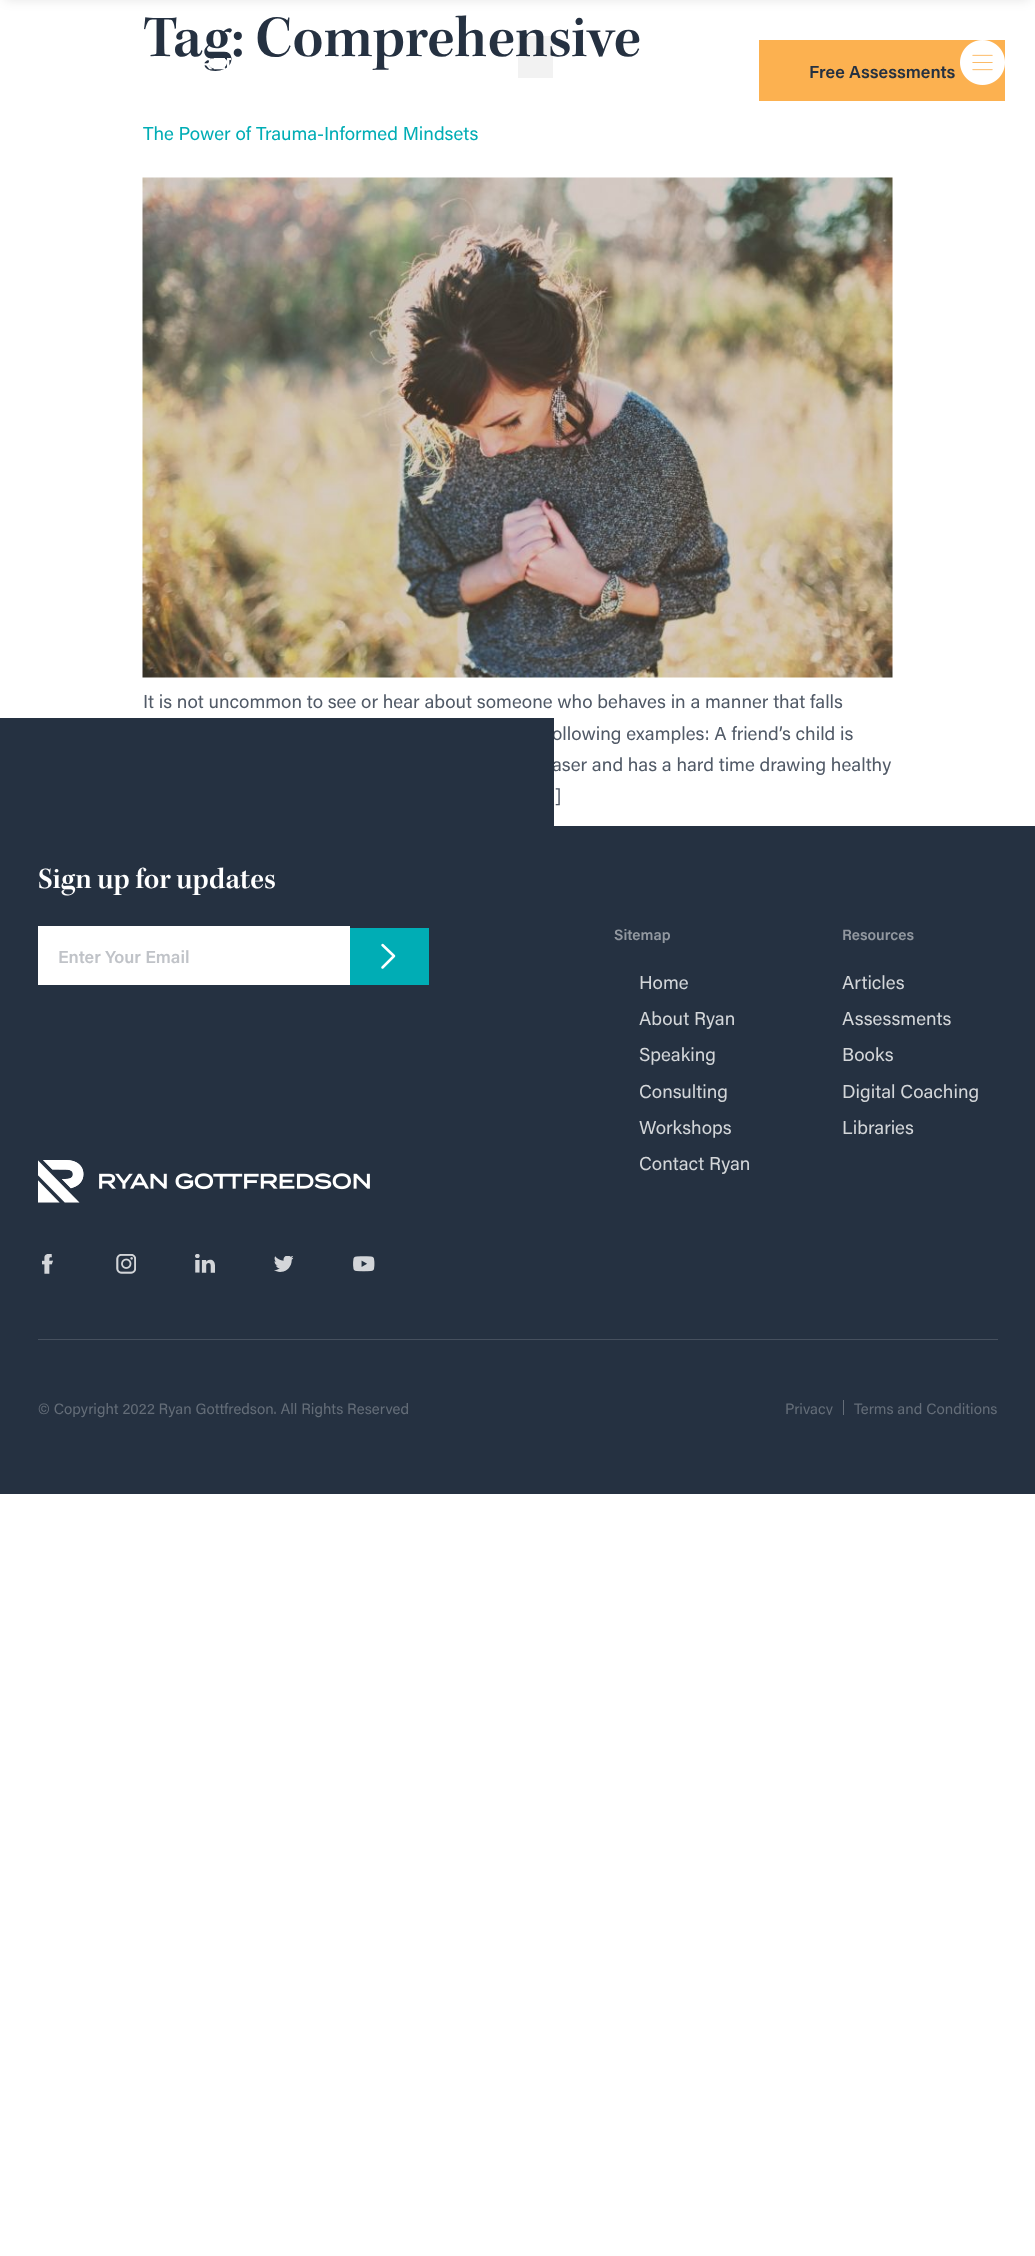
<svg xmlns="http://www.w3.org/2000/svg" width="1035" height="2256">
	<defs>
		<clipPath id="clip1"><rect x="785" y="1400" width="213" height="15" /></clipPath>
	</defs>
	<rect width="100%" height="100%" fill="#FFFFFF" />
	<text x="143" y="56" font-family="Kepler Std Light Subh" font-size="60" font-weight="600" fill="#253141">Tag: Comprehensive</text>
	<text x="143" y="140" font-family="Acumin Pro" font-size="18.75" fill="#00ADB5">The Power of Trauma-Informed Mindsets</text>
	<image x="142" y="177" width="751" height="501" href="assets/img1.png" />
	<g font-family="Acumin Pro" font-size="18.75" fill="#515A67">
		<text x="143" y="708">It is not uncommon to see or hear about someone who behaves in a manner that falls</text>
		<text x="552" y="740">ollowing examples: A friend’s child is</text>
		<text x="552" y="771">aser and has a hard time drawing healthy</text>
		<text x="555" y="802">]</text>
	</g>
	<rect x="5" y="-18" width="1025" height="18" fill="#000000" fill-opacity="0.1" filter="blur(6px)" />
	<image x="203" y="58" width="28" height="12" href="assets/img2.png" />
	<rect x="518" y="36" width="35" height="42" fill="#000000" fill-opacity="0.05" />
	<rect x="759" y="40" width="246" height="61" fill="#FCB150" />
	<text x="809" y="78" font-family="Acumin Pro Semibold" font-size="17.5" font-weight="600" fill="#253141">Free Assessments</text>
	<image x="960" y="40" width="45" height="45" href="assets/img3.png" />
	<rect x="0" y="718" width="554" height="108" fill="#253141" />
	<rect x="0" y="826" width="1035" height="668" fill="#253141" />
	<text x="38" y="888" font-family="Kepler Std Light Subh" font-size="30" font-weight="600" fill="#FFFFFF">Sign up for updates</text>
	<rect x="38" y="926" width="312" height="59" fill="#FFFFFF" />
	<text x="58" y="963" font-family="Acumin Pro Semibold" font-size="17.5" font-weight="600" fill="#C0C3C8">Enter Your Email</text>
	<rect x="350" y="928" width="79" height="57" fill="#00ADB5" />
	<path d="M382.5 967.5L394 956L382.5 945" fill="none" stroke="#FFFFFF" stroke-width="2.5" stroke-linecap="round" stroke-linejoin="round" />
	<image x="38" y="1160" width="332" height="43" href="assets/img4.png" />
	<image x="42" y="1254" width="11" height="20" href="assets/img5.png" />
	<image x="116" y="1254" width="20" height="20" href="assets/img6.png" />
	<image x="195" y="1254" width="20" height="19" href="assets/img7.png" />
	<image x="274" y="1256" width="20" height="16" href="assets/img8.png" />
	<image x="353" y="1256" width="22" height="16" href="assets/img9.png" />
	<text x="614" y="940" font-family="Acumin Pro Semibold" font-size="15" font-weight="600" fill="#9298A0">Sitemap</text>
	<g font-family="Acumin Pro" font-size="18.75" fill="#D3D6D9">
		<text x="639" y="989">Home</text>
		<text x="639" y="1025">About Ryan</text>
		<text x="639" y="1061">Speaking</text>
		<text x="639" y="1098">Consulting</text>
		<text x="639" y="1134">Workshops</text>
		<text x="639" y="1170">Contact Ryan</text>
	</g>
	<text x="842" y="940" font-family="Acumin Pro Semibold" font-size="15" font-weight="600" fill="#9298A0">Resources</text>
	<g font-family="Acumin Pro" font-size="18.75" fill="#D3D6D9">
		<text x="842" y="989">Articles</text>
		<text x="842" y="1025">Assessments</text>
		<text x="842" y="1061">Books</text>
		<text x="842" y="1098">Digital Coaching</text>
		<text x="842" y="1134">Libraries</text>
	</g>
	<rect x="38" y="1339" width="960" height="1" fill="#46505E" />
	<text x="38" y="1414" font-family="Acumin Pro" font-size="15" fill="#646D78">© Copyright 2022 Ryan Gottfredson. All Rights Reserved</text>
	<g clip-path="url(#clip1)">
		<text x="785" y="1414" font-family="Acumin Pro" font-size="15" fill="#646D78">Privacy</text>
	</g>
	<rect x="843" y="1400" width="1" height="15" fill="#646D78" />
	<text x="854" y="1414" font-family="Acumin Pro" font-size="15" fill="#646D78">Terms and Conditions</text>
</svg>
